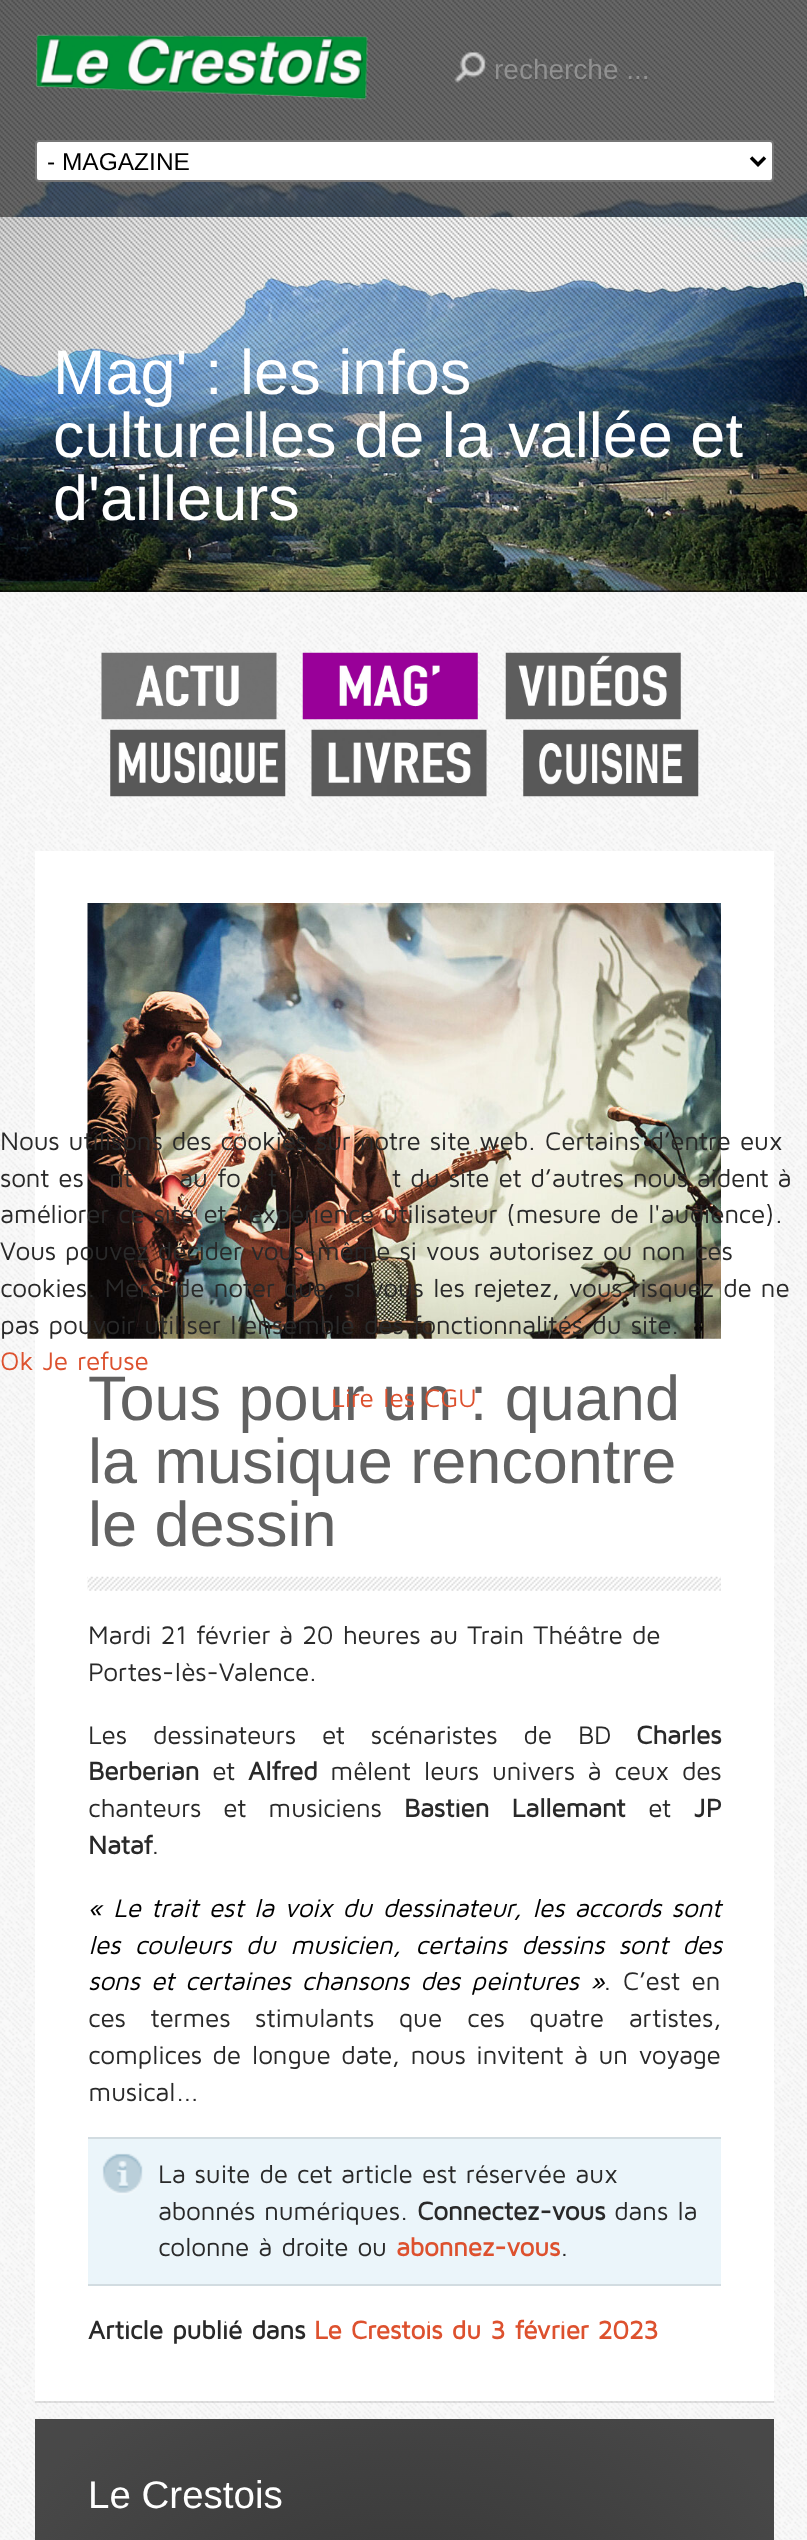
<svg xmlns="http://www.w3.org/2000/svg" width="807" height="2540">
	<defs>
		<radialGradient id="g1" gradientUnits="userSpaceOnUse" cx="0" cy="0" r="1" gradientTransform="matrix(522 0 0 444 404 2733)"><stop offset="0" stop-color="#313131" /><stop offset="0.9" stop-color="#484848" /></radialGradient>
	</defs>
	<rect width="100%" height="100%" fill="#FFFFFF" />
	<image x="0" y="0" width="807" height="217" href="assets/img1.png" />
	<image x="36" y="34" width="332" height="66" href="assets/img2.png" />
	<image x="454" y="52" width="193" height="31" href="assets/img3.png" />
	<text x="494" y="79" font-family="Liberation Sans" font-size="28" fill="#919191">recherche ...</text>
	<rect x="36" y="141" width="737" height="40" rx="3" fill="#FFFFFF" stroke="#767676" stroke-width="2" />
	<path d="M751 157.5L758 164.5L765 157.5" fill="none" stroke="#000000" stroke-width="3.5" />
	<text x="47" y="170" font-family="Liberation Sans" font-size="24.5" fill="#000000">- MAGAZINE</text>
	<rect x="0" y="591" width="807" height="1" fill="#171717" />
	<image x="0" y="217" width="807" height="375" href="assets/img4.png" />
	<rect x="0" y="590" width="807" height="2" fill="#000000" fill-opacity="0.4" />
	<g font-family="Liberation Sans" font-size="63" fill="#FFFFFF">
		<text x="53" y="394">Mag' : les infos</text>
		<text x="53" y="457">culturelles de la vallée et</text>
		<text x="53" y="520">d'ailleurs</text>
	</g>
	<rect x="0" y="592" width="807" height="1948" fill="#F9F9F9" />
	<image x="0" y="592" width="807" height="1948" href="assets/img5.png" />
	<rect x="35" y="851" width="739" height="1550" fill="#FFFFFF" />
	<image x="87" y="903" width="634" height="436" href="assets/img12.png" />
	<g font-family="Maven Pro" font-size="26.25" fill="#292929">
		<text x="0" y="1150">Nous utilisons des cookies sur notre site web. Certains d’entre eux</text>
		<text x="0" y="1187">sont es</text>
		<text x="109" y="1187">nt</text>
		<text x="179" y="1187">au fo</text>
		<text x="268" y="1187">t</text>
		<text x="392" y="1187">t du site et d’autres nous aident à</text>
		<text x="0" y="1223">améliorer ce site et l’expérience utilisateur (mesure de l'audience).</text>
		<text x="0" y="1260">Vous pouvez décider vous-même si vous autorisez ou non ces</text>
		<text x="0" y="1297">cookies. Merci de noter que, si vous les rejetez, vous risquez de ne</text>
		<text x="0" y="1334">pas pouvoir utiliser l’ensemble des fonctionnalités du site.</text>
	</g>
	<text x="0" y="1370" font-family="Maven Pro" font-size="26.25" fill="#DD512E">Ok Je refuse</text>
	<text x="88" y="1420" font-family="Liberation Sans" font-size="63" fill="#616161">Tous pour un : quand</text>
	<text x="331" y="1407" font-family="Maven Pro" font-size="26.25" fill="#DD512E">Lire les CGU</text>
	<image x="101" y="652" width="176" height="68" href="assets/img6.png" />
	<image x="302" y="652" width="176" height="68" href="assets/img7.png" />
	<image x="505" y="652" width="176" height="68" href="assets/img8.png" />
	<image x="110" y="729" width="176" height="68" href="assets/img9.png" />
	<image x="311" y="729" width="176" height="68" href="assets/img10.png" />
	<image x="523" y="729" width="176" height="68" href="assets/img11.png" />
	<path d="M35 2401V2403H774V852V2401Z" fill="#000000" fill-opacity="0.1" />
	<image x="87" y="1576" width="634" height="15" href="assets/img13.png" />
	<g font-family="Liberation Sans" font-size="63" fill="#616161">
		<text x="88" y="1483">la musique rencontre</text>
		<text x="88" y="1546">le dessin</text>
	</g>
	<g font-family="Maven Pro" font-size="26.25" fill="#292929">
		<text x="88" y="1644">Mardi 21 février à 20 heures au Train Théâtre de</text>
		<text x="88" y="1681">Portes-lès-Valence.</text>
		<text x="88" y="1744" word-spacing="17">Les dessinateurs et scénaristes de BD</text>
	</g>
	<g font-family="Maven Pro" font-size="26.25" font-weight="700" fill="#292929">
		<text x="636" y="1744">Charles</text>
		<text x="88" y="1780">Berberian</text>
	</g>
	<text x="212" y="1780" font-family="Maven Pro" font-size="26.25" fill="#292929">et</text>
	<text x="248" y="1780" font-family="Maven Pro" font-size="26.25" font-weight="700" fill="#292929">Alfred</text>
	<g font-family="Maven Pro" font-size="26.25" fill="#292929">
		<text x="330" y="1780" word-spacing="3.75">mêlent leurs univers à ceux des</text>
		<text x="88" y="1817" word-spacing="13">chanteurs et musiciens</text>
	</g>
	<text x="404" y="1817" word-spacing="13" font-family="Maven Pro" font-size="26.25" font-weight="700" fill="#292929">Bastien Lallemant</text>
	<text x="648" y="1817" font-family="Maven Pro" font-size="26.25" fill="#292929">et</text>
	<g font-family="Maven Pro" font-size="26.25" font-weight="700" fill="#292929">
		<text x="694" y="1817">JP</text>
		<text x="88" y="1854">Nataf</text>
	</g>
	<text x="151" y="1854" font-family="Maven Pro" font-size="26.25" fill="#292929">.</text>
	<g font-family="Maven Pro" font-size="26.25" font-style="italic" fill="#000000">
		<text x="88" y="1917" word-spacing="1.5">« Le trait est la voix du dessinateur, les accords sont</text>
		<text x="88" y="1954" word-spacing="5.5">les couleurs du musicien, certains dessins sont des</text>
		<text x="88" y="1990" word-spacing="2.25">sons et certaines chansons des peintures »</text>
	</g>
	<g font-family="Maven Pro" font-size="26.25" fill="#292929">
		<text x="603" y="1990" word-spacing="2.25">. C’est en</text>
		<text x="88" y="2027" word-spacing="15.75">ces termes stimulants que ces quatre artistes,</text>
		<text x="88" y="2064" word-spacing="1.5">complices de longue date, nous invitent à un voyage</text>
		<text x="88" y="2101">musical...</text>
	</g>
	<rect x="88" y="2139" width="633" height="145" fill="#EBF5FA" />
	<image x="102" y="2153" width="41" height="42" href="assets/img14.png" />
	<rect x="88" y="2137" width="633" height="2" fill="#D2DCE1" />
	<rect x="88" y="2284" width="633" height="2" fill="#D2DCE1" />
	<g font-family="Maven Pro" font-size="26.25" fill="#292929">
		<text x="158" y="2183">La suite de cet article est réservée aux</text>
		<text x="158" y="2220">abonnés numériques.</text>
	</g>
	<text x="417" y="2220" font-family="Maven Pro" font-size="26.25" font-weight="700" fill="#292929">Connectez-vous</text>
	<g font-family="Maven Pro" font-size="26.25" fill="#292929">
		<text x="614" y="2220">dans la</text>
		<text x="158" y="2256">colonne à droite ou</text>
	</g>
	<text x="396" y="2256" font-family="Maven Pro" font-size="26.25" font-weight="700" fill="#DD512E">abonnez-vous</text>
	<text x="560" y="2256" font-family="Maven Pro" font-size="26.25" fill="#292929">.</text>
	<text x="88" y="2339" font-family="Maven Pro" font-size="26.25" font-weight="700" fill="#292929">Article publié dans</text>
	<text x="314" y="2339" font-family="Maven Pro" font-size="26.25" font-weight="700" fill="#DD512E">Le Crestois du 3 février 2023</text>
	<rect x="35" y="2419" width="739" height="121" fill="url(#g1)" />
	<text x="88" y="2508" font-family="Liberation Sans" font-size="38.5" fill="#FFFFFF">Le Crestois</text>
</svg>
